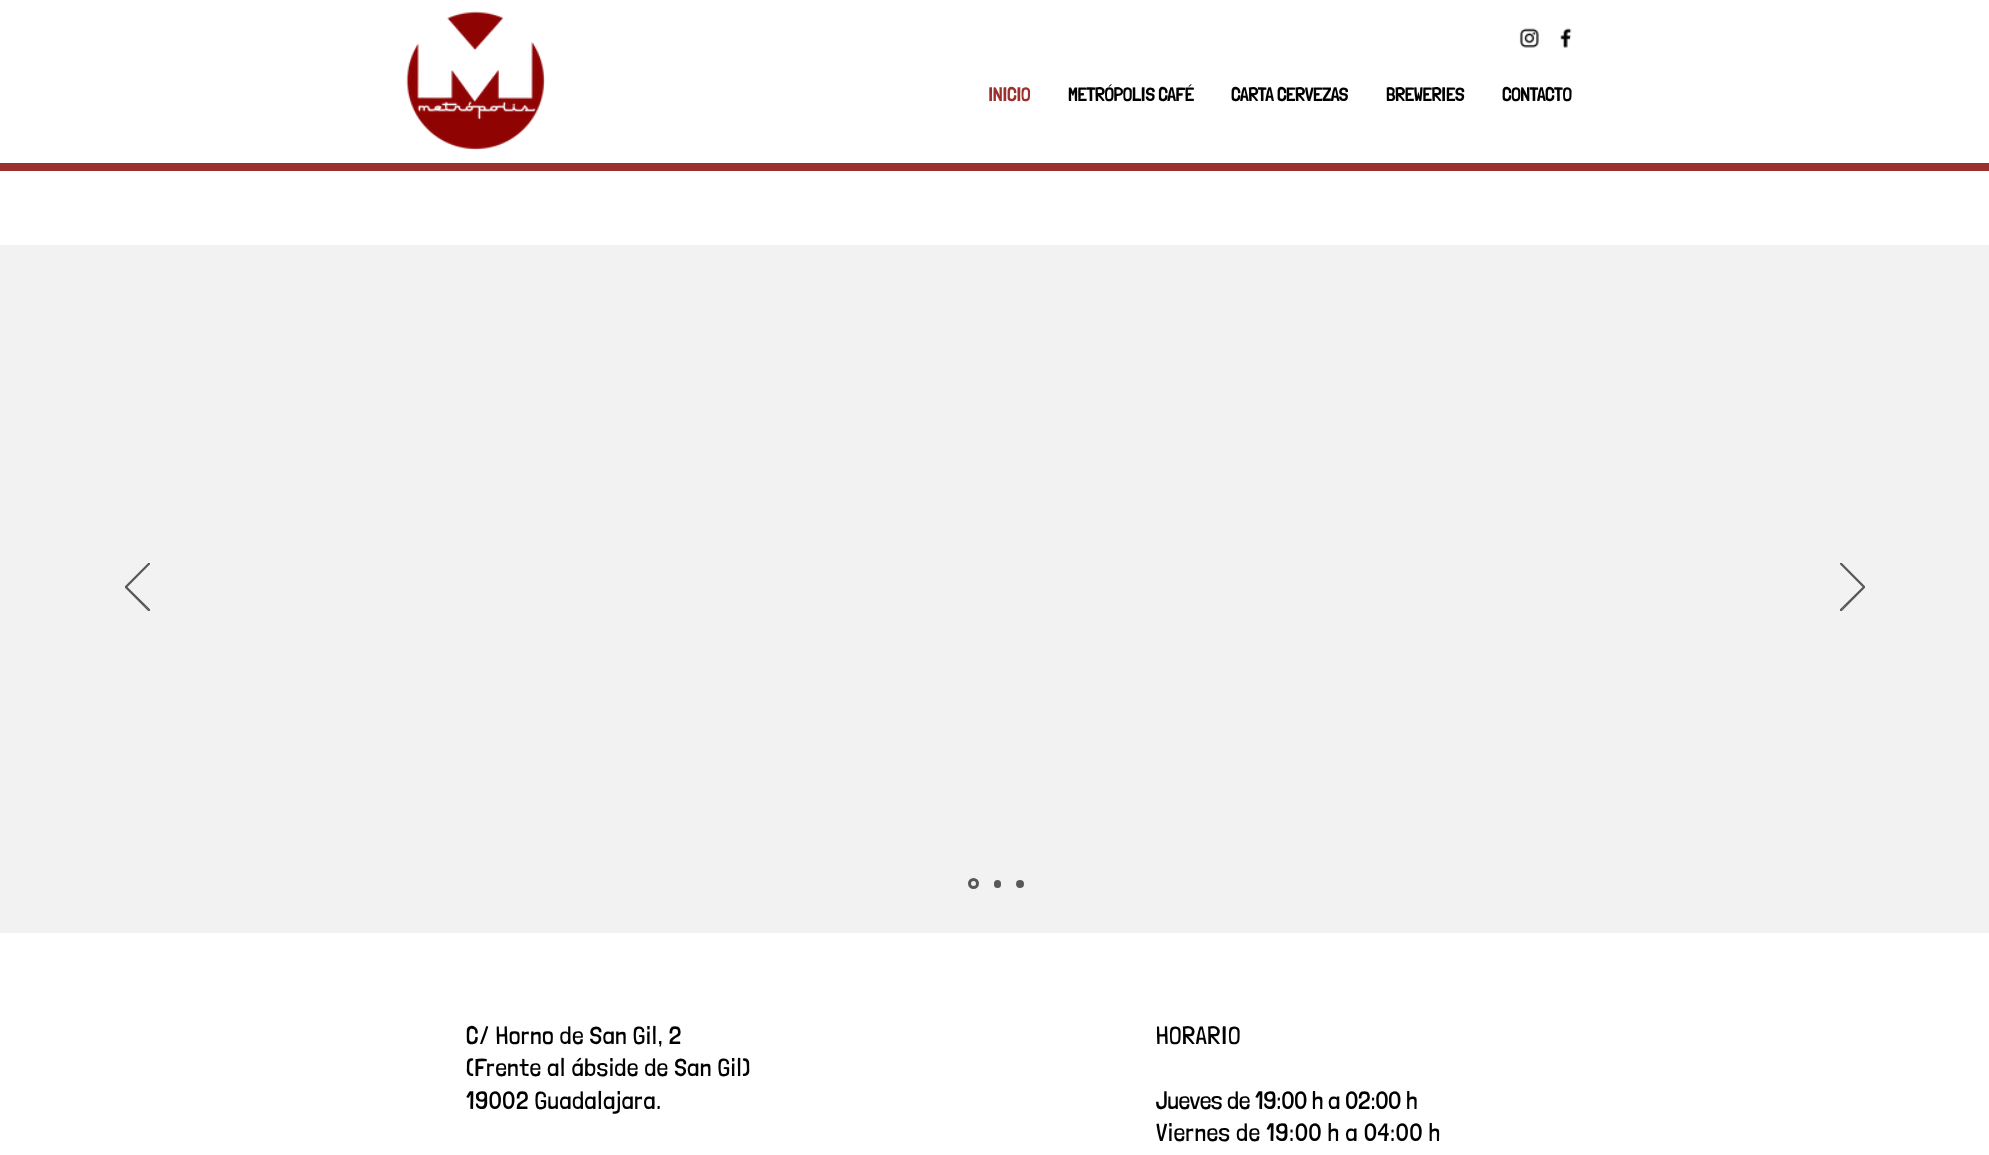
<svg xmlns="http://www.w3.org/2000/svg" width="1989" height="1155">
	<defs>
		<clipPath id="clip1"><rect x="125" y="563" width="25" height="48" /></clipPath>
		<clipPath id="clip2"><rect x="1840" y="563" width="25" height="48" /></clipPath>
	</defs>
	<rect width="100%" height="100%" fill="#FFFFFF" />
	<image x="406" y="11" width="139" height="139" href="assets/img1.png" />
	<image x="1519" y="28" width="20" height="20" href="assets/img2.png" />
	<image x="1560" y="28" width="12" height="20" href="assets/img3.png" />
	<text x="988" y="101" font-family="Londrina Solid" font-size="18.75" font-weight="700" fill="#9B312D">INICIO</text>
	<g font-family="Londrina Solid" font-size="18.75" font-weight="700" fill="#000000">
		<text x="1068" y="101">METRÓPOLIS CAFÉ</text>
		<text x="1231" y="101">CARTA CERVEZAS</text>
		<text x="1386" y="101">BREWERIES</text>
		<text x="1502" y="101">CONTACTO</text>
	</g>
	<rect x="0" y="163" width="1989" height="8" fill="#9B312D" />
	<rect x="0" y="245" width="1989" height="688" fill="#F2F2F2" />
	<g clip-path="url(#clip1)">
		<path d="M149 611L125 587L149 563L150 563.5L126.5 587L150 610Z" fill="none" stroke="#595858" stroke-width="1.2" />
	</g>
	<g clip-path="url(#clip2)">
		<path d="M1841 611L1865 587L1841 563L1840 563.5L1863.5 587L1840 610Z" fill="none" stroke="#595858" stroke-width="1.2" />
	</g>
	<circle cx="973.5" cy="883.5" r="4" fill="none" stroke="#595858" stroke-width="3" />
	<rect x="994" y="880" width="7" height="8" rx="3.5" fill="#595858" />
	<circle cx="1020" cy="884" r="4" fill="#595858" />
	<g font-family="Londrina Solid" font-size="25" font-weight="300" letter-spacing="0.75" fill="#000000">
		<text x="466" y="1044">C/ Horno de San Gil, 2</text>
		<text x="466" y="1076">(Frente al ábside de San Gil)</text>
		<text x="466" y="1109">19002 Guadalajara.</text>
		<text x="1156" y="1044">HORARIO</text>
	</g>
	<text x="1156" y="1109" font-family="Londrina Solid" font-size="25" font-weight="300" fill="#000000">Jueves de 19:00 h a 02:00 h</text>
	<text x="1156" y="1141" font-family="Londrina Solid" font-size="25" font-weight="300" letter-spacing="0.75" fill="#000000">Viernes de 19:00 h a 04:00 h</text>
</svg>
